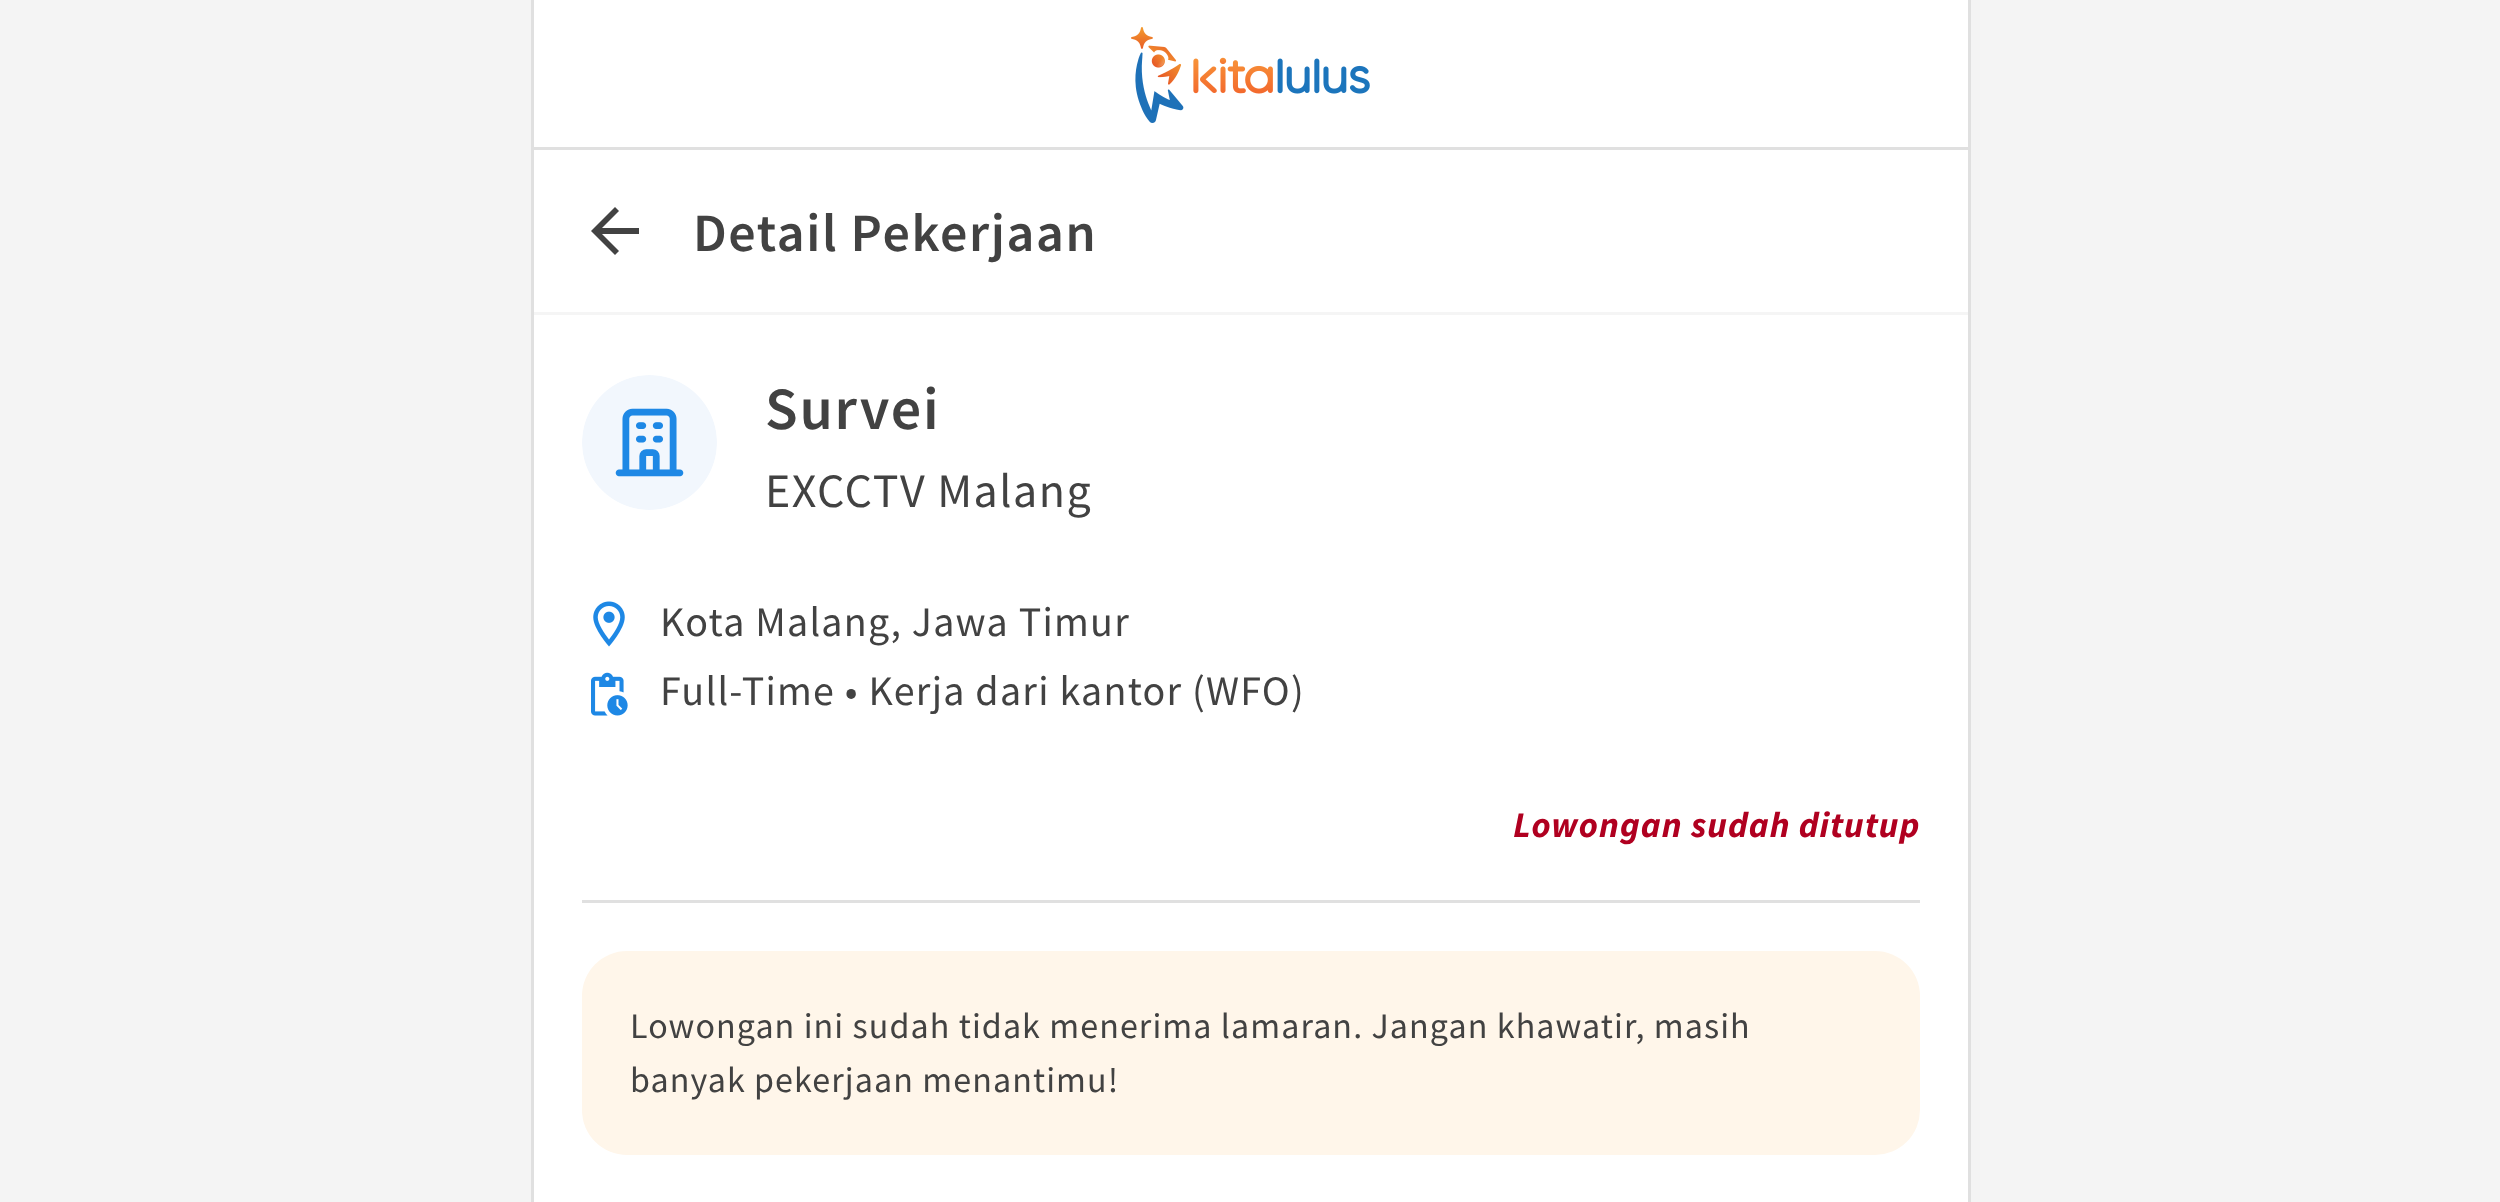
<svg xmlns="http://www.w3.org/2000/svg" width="2500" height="1202">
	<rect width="100%" height="100%" fill="#F4F4F4" />
	<rect x="534" y="0" width="1434" height="1202" fill="#FFFFFF" />
	<rect x="1968" y="0" width="3" height="1202" fill="#E0E0E0" />
	<rect x="531" y="0" width="3" height="1202" fill="#E0E0E0" />
	<rect x="534" y="147" width="1434" height="3" fill="#E0E0E0" />
	<image x="1131" y="27" width="239" height="96" href="assets/img1.png" />
	<rect x="534" y="312" width="1434" height="3" fill="#F5F5F5" />
	<path d="M639 228H602L619 211L615 207L591 231L615 255L619 251L602 234H639Z" fill="#424242" />
	<text x="693" y="251" font-family="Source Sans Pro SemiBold" font-size="54" font-weight="600" letter-spacing="1.6" fill="#424242">Detail Pekerjaan</text>
	<image x="582" y="375" width="135" height="135" href="assets/img2.png" />
	<text x="765" y="429" font-family="Source Sans Pro SemiBold" font-size="60" font-weight="600" letter-spacing="1.75" fill="#424242">Survei</text>
	<text x="765" y="507" font-family="Source Sans Pro" font-size="48" letter-spacing="1.5" fill="#424242">EXCCTV Malang</text>
	<image x="593" y="601" width="32" height="46" href="assets/img3.png" />
	<text x="660" y="636" font-family="Source Sans Pro" font-size="42" letter-spacing="1.25" fill="#424242">Kota Malang, Jawa Timur</text>
	<image x="591" y="672" width="37" height="44" href="assets/img4.png" />
	<text x="660" y="705" font-family="Source Sans Pro" font-size="42" letter-spacing="1.25" fill="#424242">Full-Time • Kerja dari kantor (WFO)</text>
	<text x="1513" y="837" font-family="Source Sans Pro" font-size="36" font-weight="700" font-style="italic" letter-spacing="1.08" fill="#B00020">Lowongan sudah ditutup</text>
	<rect x="582" y="900" width="1338" height="3" fill="#E0E0E0" />
	<rect x="582" y="951" width="1338" height="204" rx="45" fill="#FFF6EA" />
	<g font-family="Source Sans Pro" font-size="36" letter-spacing="1.08" fill="#424242">
		<text x="630" y="1038">Lowongan ini sudah tidak menerima lamaran. Jangan khawatir, masih</text>
		<text x="630" y="1092">banyak pekerjaan menantimu!</text>
	</g>
</svg>
